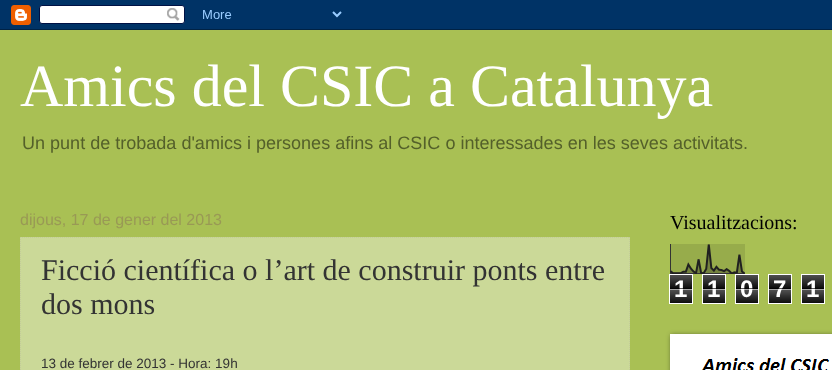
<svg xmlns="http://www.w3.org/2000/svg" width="832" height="370">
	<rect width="100%" height="100%" fill="#A9C054" />
	<image x="0" y="0" width="832" height="30" href="assets/img1.png" />
	<text x="20" y="106" font-family="Liberation Serif" font-size="60" fill="#FFFFFF">Amics del CSIC a Catalunya</text>
	<text x="22" y="149" font-family="Liberation Sans" font-size="18.05" fill="#54602A">Un punt de trobada d'amics i persones afins al CSIC o interessades en les seves activitats.</text>
	<text x="20" y="225" font-family="Liberation Sans" font-size="16" fill="#999955">dijous, 17 de gener del 2013</text>
	<rect x="20" y="237" width="610" height="133" fill="#CBD998" />
	<path d="M20 237.5H630" fill="none" stroke="#C3CC99" stroke-dasharray="1 1" />
	<path d="M629.5 237V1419" fill="none" stroke="#C3CC99" stroke-dasharray="1 1" />
	<path d="M20.5 237V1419" fill="none" stroke="#C3CC99" stroke-dasharray="1 1" />
	<g font-family="Liberation Serif" font-size="30" fill="#333333">
		<text x="41" y="280">Ficció científica o l’art de construir ponts entre</text>
		<text x="41" y="314">dos mons</text>
	</g>
	<text x="41" y="368" font-family="Liberation Sans" font-size="13.5" fill="#333333">13 de febrer de 2013 - Hora: 19h</text>
	<text x="670" y="229" font-family="Liberation Serif" font-size="20" fill="#000000">Visualitzacions:</text>
	<image x="670" y="244" width="75" height="30" href="assets/img2.png" />
	<image x="670" y="275" width="22" height="28" href="assets/img3.png" />
	<rect x="669.5" y="274.5" width="23" height="29" fill="none" stroke="#FFFFFF" />
	<text x="674" y="297" font-family="Liberation Sans" font-size="24" font-weight="700" fill="#FFFFFF">1</text>
	<rect x="670" y="288" width="22" height="1" fill="#000000" fill-opacity="0.65" />
	<rect x="670" y="289" width="22" height="1" fill="#FFFFFF" fill-opacity="0.65" />
	<image x="703" y="275" width="22" height="28" href="assets/img3.png" />
	<rect x="702.5" y="274.5" width="23" height="29" fill="none" stroke="#FFFFFF" />
	<text x="707" y="297" font-family="Liberation Sans" font-size="24" font-weight="700" fill="#FFFFFF">1</text>
	<rect x="703" y="288" width="22" height="1" fill="#000000" fill-opacity="0.65" />
	<rect x="703" y="289" width="22" height="1" fill="#FFFFFF" fill-opacity="0.65" />
	<image x="736" y="275" width="22" height="28" href="assets/img3.png" />
	<rect x="735.5" y="274.5" width="23" height="29" fill="none" stroke="#FFFFFF" />
	<text x="740" y="297" font-family="Liberation Sans" font-size="24" font-weight="700" fill="#FFFFFF">0</text>
	<rect x="736" y="288" width="22" height="1" fill="#000000" fill-opacity="0.65" />
	<rect x="736" y="289" width="22" height="1" fill="#FFFFFF" fill-opacity="0.65" />
	<image x="769" y="275" width="22" height="28" href="assets/img3.png" />
	<rect x="768.5" y="274.5" width="23" height="29" fill="none" stroke="#FFFFFF" />
	<text x="773" y="297" font-family="Liberation Sans" font-size="24" font-weight="700" fill="#FFFFFF">7</text>
	<rect x="769" y="288" width="22" height="1" fill="#000000" fill-opacity="0.65" />
	<rect x="769" y="289" width="22" height="1" fill="#FFFFFF" fill-opacity="0.65" />
	<image x="802" y="275" width="22" height="28" href="assets/img3.png" />
	<rect x="801.5" y="274.5" width="23" height="29" fill="none" stroke="#FFFFFF" />
	<text x="806" y="297" font-family="Liberation Sans" font-size="24" font-weight="700" fill="#FFFFFF">1</text>
	<rect x="802" y="288" width="22" height="1" fill="#000000" fill-opacity="0.65" />
	<rect x="802" y="289" width="22" height="1" fill="#FFFFFF" fill-opacity="0.65" />
	<rect x="671" y="335" width="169" height="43" fill="#000000" fill-opacity="0.5" filter="blur(2.5px)" />
	<rect x="670" y="334" width="162" height="36" fill="#FFFFFF" />
	<image x="702" y="358" width="128" height="12" href="assets/img4.png" />
</svg>
